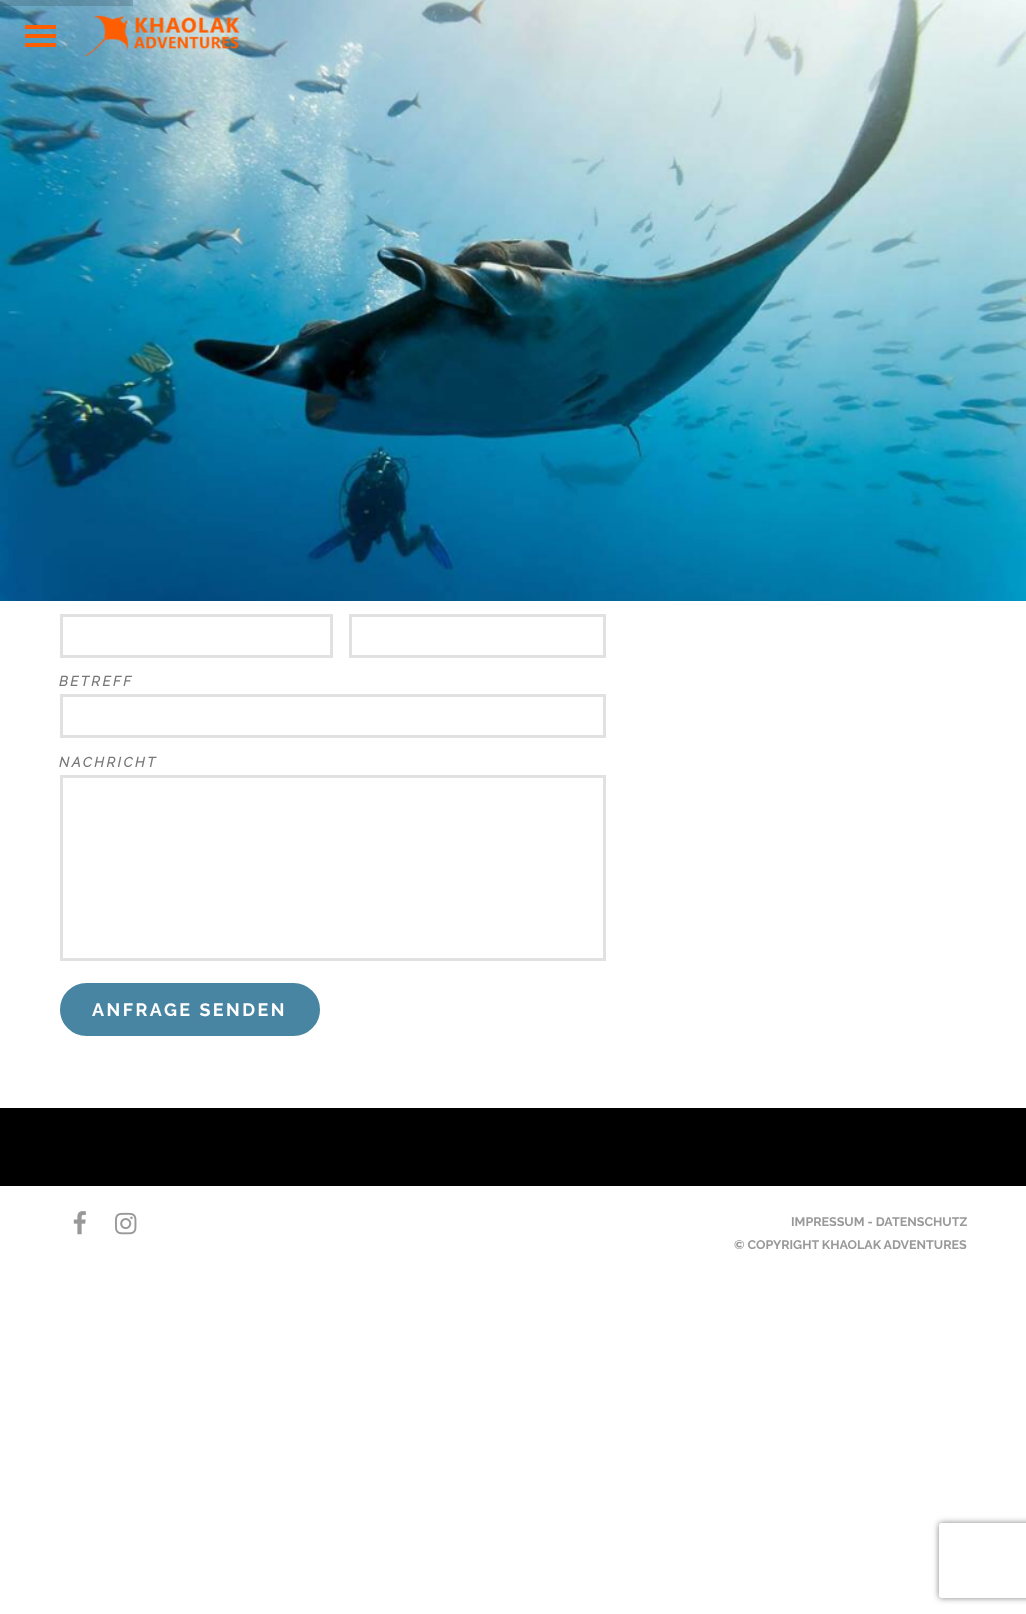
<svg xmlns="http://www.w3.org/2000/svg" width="1026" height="1614">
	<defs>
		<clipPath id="clip1"><path d="M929 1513H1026V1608H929ZM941.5 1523H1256.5C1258 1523 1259 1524 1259 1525.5V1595.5C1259 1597 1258 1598 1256.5 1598H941.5C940 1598 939 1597 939 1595.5V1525.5C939 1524 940 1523 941.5 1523Z" clip-rule="evenodd" /></clipPath>
	</defs>
	<rect width="100%" height="100%" fill="#FFFFFF" />
	<image x="0" y="0" width="1026" height="601" href="assets/img1.png" />
	<rect x="0" y="0" width="133" height="6" fill="#000000" fill-opacity="0.15" />
	<rect x="25" y="25" width="31" height="4" fill="#FF5E00" />
	<rect x="25" y="34" width="31" height="4" fill="#FF5E00" />
	<rect x="25" y="43" width="31" height="4" fill="#FF5E00" />
	<image x="85" y="15" width="155" height="42" href="assets/img2.png" />
	<rect x="61.5" y="615.5" width="270" height="41" fill="none" stroke="#E1E1E1" stroke-width="3" />
	<rect x="350.5" y="615.5" width="254" height="41" fill="none" stroke="#E1E1E1" stroke-width="3" />
	<text x="59" y="686" font-family="Raleway" font-size="13.75" font-weight="700" font-style="italic" letter-spacing="2.5" fill="#777777">BETREFF</text>
	<rect x="61.5" y="695.5" width="543" height="41" fill="none" stroke="#E1E1E1" stroke-width="3" />
	<text x="59" y="767" font-family="Raleway" font-size="13.75" font-weight="700" font-style="italic" letter-spacing="2.5" fill="#777777">NACHRICHT</text>
	<rect x="61.5" y="776.5" width="543" height="183" fill="none" stroke="#E1E1E1" stroke-width="3" />
	<rect x="61.5" y="984.5" width="257" height="50" rx="25" fill="#4885A2" stroke="#4885A2" stroke-width="3" />
	<text x="92" y="1016" font-family="Raleway" font-size="17.9" font-weight="700" letter-spacing="2.5" fill="#FFFFFF">ANFRAGE SENDEN</text>
	<rect x="0" y="1108" width="1026" height="78" fill="#000000" />
	<image x="73" y="1211" width="13" height="24" href="assets/img3.png" />
	<image x="115" y="1212" width="22" height="23" href="assets/img4.png" />
	<g font-family="Raleway" font-size="12.5" font-weight="700" fill="#999999">
		<text x="791" y="1226">IMPRESSUM - DATENSCHUTZ</text>
		<text x="734" y="1249">© COPYRIGHT KHAOLAK ADVENTURES</text>
	</g>
	<g clip-path="url(#clip1)">
		<rect x="939" y="1523" width="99" height="75" rx="2.5" fill="#808080" filter="blur(3px)" />
	</g>
</svg>
